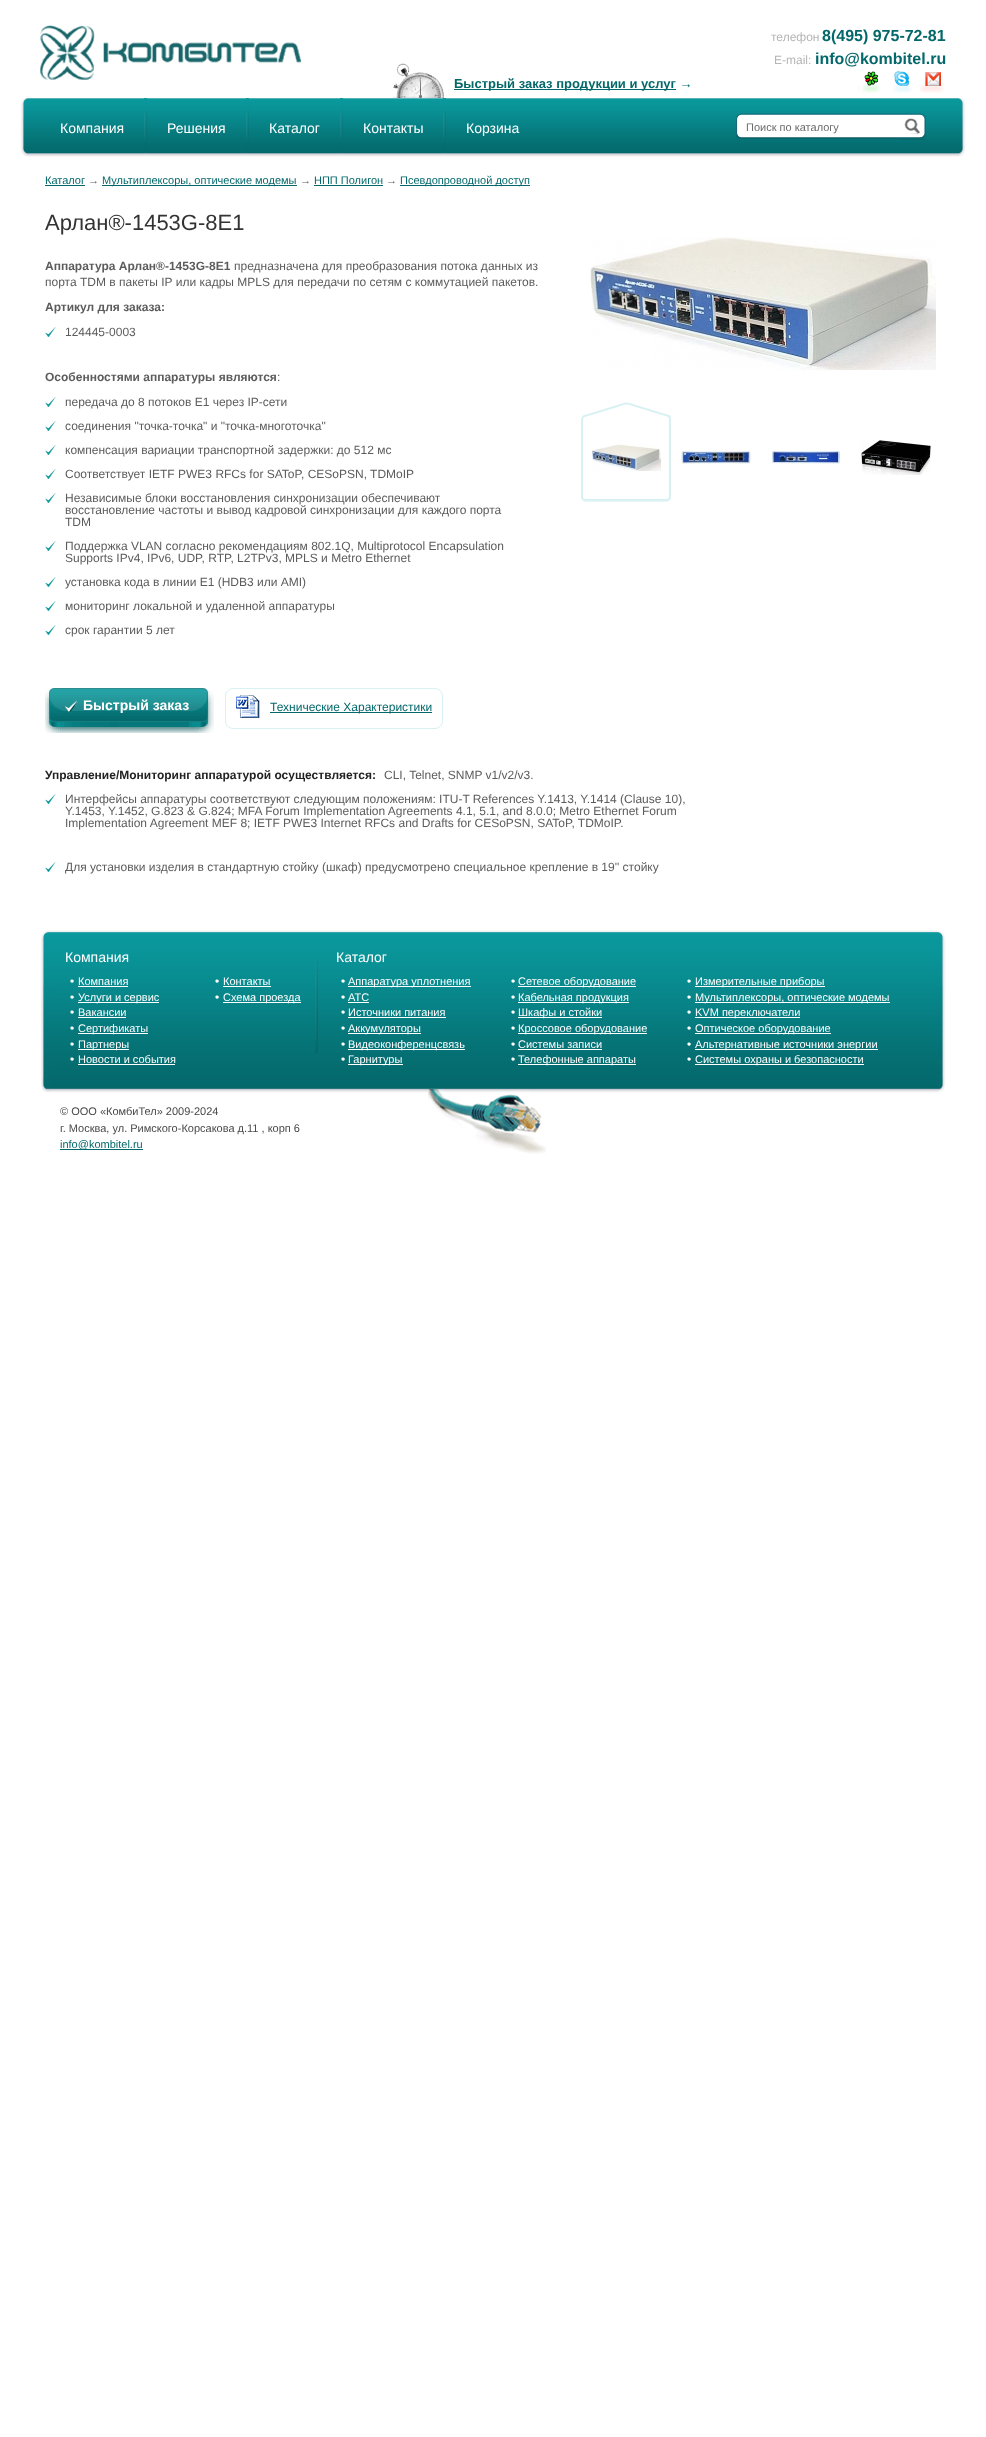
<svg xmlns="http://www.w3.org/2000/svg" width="986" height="2437">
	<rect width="100%" height="100%" fill="#FFFFFF" />
	<image x="40" y="25" width="261" height="55" href="assets/img1.png" />
	<text x="771" y="41" font-family="Liberation Sans" font-size="12" fill="#B5B5B5">телефон</text>
	<text x="822" y="41" font-family="Liberation Sans" font-size="16" font-weight="700" fill="#04686B">8(495) 975-72-81</text>
	<text x="774" y="64" font-family="Liberation Sans" font-size="12" fill="#B5B5B5">E-mail:</text>
	<text x="815" y="64" font-family="Liberation Sans" font-size="16" font-weight="700" fill="#04686B">info@kombitel.ru</text>
	<image x="858" y="71" width="23" height="22" href="assets/img2.png" />
	<image x="893" y="71" width="19" height="22" href="assets/img3.png" />
	<image x="920" y="72" width="24" height="21" href="assets/img4.png" />
	<image x="393" y="63" width="51" height="35" href="assets/img5.png" />
	<rect x="454" y="89" width="222" height="1" fill="#04686B" />
	<text x="454" y="88" font-family="Liberation Sans" font-size="13" font-weight="700" fill="#04686B">Быстрый заказ продукции и услуг →</text>
	<image x="20" y="98" width="7" height="59" href="assets/img6.png" />
	<image x="27" y="98" width="932" height="59" href="assets/img7.png" />
	<text x="60" y="133" font-family="Liberation Sans" font-size="14" fill="#FFFFFF">Компания</text>
	<image x="144" y="98" width="3" height="56" href="assets/img8.png" />
	<text x="167" y="133" font-family="Liberation Sans" font-size="14" fill="#FFFFFF">Решения</text>
	<image x="246" y="98" width="3" height="56" href="assets/img8.png" />
	<text x="269" y="133" font-family="Liberation Sans" font-size="14" fill="#FFFFFF">Каталог</text>
	<image x="340" y="98" width="3" height="56" href="assets/img8.png" />
	<text x="363" y="133" font-family="Liberation Sans" font-size="14" fill="#FFFFFF">Контакты</text>
	<image x="443" y="98" width="3" height="56" href="assets/img8.png" />
	<text x="466" y="133" font-family="Liberation Sans" font-size="14" fill="#FFFFFF">Корзина</text>
	<image x="736" y="113" width="165" height="26" href="assets/img9.png" />
	<text x="746" y="131" font-family="Liberation Sans" font-size="11" fill="#6B6B6B">Поиск по каталогу</text>
	<image x="901" y="113" width="25" height="27" href="assets/img10.png" />
	<image x="959" y="98" width="7" height="59" href="assets/img11.png" />
	<text x="45" y="184" font-family="Liberation Sans" font-size="11" fill="#04686B">Каталог</text>
	<rect x="45" y="185" width="40" height="1" fill="#04686B" />
	<text x="88" y="184" font-family="Liberation Sans" font-size="11" fill="#5C5C5C">→</text>
	<rect x="102" y="185" width="195" height="1" fill="#04686B" />
	<text x="102" y="184" font-family="Liberation Sans" font-size="11" fill="#04686B">Мультиплексоры, оптические модемы</text>
	<text x="300" y="184" font-family="Liberation Sans" font-size="11" fill="#5C5C5C">→</text>
	<text x="314" y="184" font-family="Liberation Sans" font-size="11" fill="#04686B">НПП Полигон</text>
	<rect x="314" y="185" width="69" height="1" fill="#04686B" />
	<text x="386" y="184" font-family="Liberation Sans" font-size="11" fill="#5C5C5C">→</text>
	<rect x="400" y="185" width="130" height="1" fill="#04686B" />
	<text x="400" y="184" font-family="Liberation Sans" font-size="11" fill="#04686B">Псевдопроводной доступ</text>
	<text x="45" y="230" font-family="Liberation Sans" font-size="22" fill="#333333">Арлан®-1453G-8E1</text>
	<text x="45" y="270" font-family="Liberation Sans" font-size="12" font-weight="700" fill="#5C5C5C">Аппаратура Арлан®-1453G-8E1</text>
	<g font-family="Liberation Sans" font-size="12" fill="#5C5C5C">
		<text x="234" y="270">предназначена для преобразования потока данных из</text>
		<text x="45" y="286">порта TDM в пакеты IP или кадры MPLS для передачи по сетям с коммутацией пакетов.</text>
	</g>
	<text x="45" y="311" font-family="Liberation Sans" font-size="12" font-weight="700" fill="#5C5C5C">Артикул для заказа:</text>
	<image x="45" y="327" width="11" height="10" href="assets/img12.png" />
	<text x="65" y="336" font-family="Liberation Sans" font-size="12" fill="#5C5C5C">124445-0003</text>
	<text x="45" y="381" font-family="Liberation Sans" font-size="12" font-weight="700" fill="#5C5C5C">Особенностями аппаратуры являются</text>
	<text x="277" y="381" font-family="Liberation Sans" font-size="12" fill="#5C5C5C">:</text>
	<image x="45" y="397" width="11" height="10" href="assets/img12.png" />
	<text x="65" y="406" font-family="Liberation Sans" font-size="12" fill="#5C5C5C">передача до 8 потоков E1 через IP-сети</text>
	<image x="45" y="421" width="11" height="10" href="assets/img12.png" />
	<text x="65" y="430" font-family="Liberation Sans" font-size="12" fill="#5C5C5C">соединения "точка-точка" и "точка-многоточка"</text>
	<image x="45" y="445" width="11" height="10" href="assets/img12.png" />
	<text x="65" y="454" font-family="Liberation Sans" font-size="12" fill="#5C5C5C">компенсация вариации транспортной задержки: до 512 мс</text>
	<image x="45" y="469" width="11" height="10" href="assets/img12.png" />
	<text x="65" y="478" font-family="Liberation Sans" font-size="12" fill="#5C5C5C">Соответствует IETF PWE3 RFCs for SAToP, CESoPSN, TDMoIP</text>
	<image x="45" y="493" width="11" height="10" href="assets/img12.png" />
	<g font-family="Liberation Sans" font-size="12" fill="#5C5C5C">
		<text x="65" y="502">Независимые блоки восстановления синхронизации обеспечивают</text>
		<text x="65" y="514">восстановление частоты и вывод кадровой синхронизации для каждого порта</text>
		<text x="65" y="526">TDM</text>
	</g>
	<image x="45" y="541" width="11" height="10" href="assets/img12.png" />
	<g font-family="Liberation Sans" font-size="12" fill="#5C5C5C">
		<text x="65" y="550">Поддержка VLAN согласно рекомендациям 802.1Q, Multiprotocol Encapsulation</text>
		<text x="65" y="562">Supports IPv4, IPv6, UDP, RTP, L2TPv3, MPLS и Metro Ethernet</text>
	</g>
	<image x="45" y="577" width="11" height="10" href="assets/img12.png" />
	<text x="65" y="586" font-family="Liberation Sans" font-size="12" fill="#5C5C5C">установка кода в линии E1 (HDB3 или AMI)</text>
	<image x="45" y="601" width="11" height="10" href="assets/img12.png" />
	<text x="65" y="610" font-family="Liberation Sans" font-size="12" fill="#5C5C5C">мониторинг локальной и удаленной аппаратуры</text>
	<image x="45" y="625" width="11" height="10" href="assets/img12.png" />
	<text x="65" y="634" font-family="Liberation Sans" font-size="12" fill="#5C5C5C">срок гарантии 5 лет</text>
	<image x="189" y="688" width="25" height="45" href="assets/img13.png" />
	<image x="45" y="688" width="144" height="45" href="assets/img14.png" />
	<image x="65" y="700" width="13" height="13" href="assets/img15.png" />
	<text x="83" y="710" font-family="Liberation Sans" font-size="14" font-weight="700" fill="#FFFFFF">Быстрый заказ</text>
	<rect x="225.5" y="688.5" width="217" height="40" rx="7.5" fill="none" stroke="#D8F1F2" />
	<image x="236" y="695" width="24" height="23" href="assets/img16.png" />
	<rect x="270" y="712" width="162" height="1" fill="#04686B" />
	<text x="270" y="711" font-family="Liberation Sans" font-size="12" fill="#04686B">Технические Характеристики</text>
	<image x="589" y="237" width="347" height="133" href="assets/img17.png" />
	<image x="581" y="402" width="90" height="100" href="assets/img18.png" />
	<image x="591" y="444" width="70" height="27" href="assets/img19.png" />
	<image x="681" y="450" width="70" height="14" href="assets/img20.png" />
	<image x="772" y="450" width="69" height="14" href="assets/img21.png" />
	<image x="861" y="440" width="70" height="35" href="assets/img22.png" />
	<text x="45" y="779" font-family="Liberation Sans" font-size="12" font-weight="700" fill="#222222">Управление/Мониторинг аппаратурой осуществляется:</text>
	<text x="384" y="779" font-family="Liberation Sans" font-size="12" fill="#5C5C5C">CLI, Telnet, SNMP v1/v2/v3.</text>
	<image x="45" y="794" width="11" height="10" href="assets/img12.png" />
	<g font-family="Liberation Sans" font-size="12" fill="#5C5C5C">
		<text x="65" y="803">Интерфейсы аппаратуры соответствуют следующим положениям: ITU-T References Y.1413, Y.1414 (Clause 10),</text>
		<text x="65" y="815">Y.1453, Y.1452, G.823 &amp; G.824; MFA Forum Implementation Agreements 4.1, 5.1, and 8.0.0; Metro Ethernet Forum</text>
		<text x="65" y="827">Implementation Agreement MEF 8; IETF PWE3 Internet RFCs and Drafts for CESoPSN, SAToP, TDMoIP.</text>
	</g>
	<image x="45" y="862" width="11" height="10" href="assets/img12.png" />
	<text x="65" y="871" font-family="Liberation Sans" font-size="12" fill="#5C5C5C">Для установки изделия в стандартную стойку (шкаф) предусмотрено специальное крепление в 19'' стойку</text>
	<image x="49" y="930" width="888" height="163" href="assets/img23.png" />
	<image x="40" y="930" width="9" height="163" href="assets/img24.png" />
	<text x="65" y="962" font-family="Liberation Sans" font-size="14" fill="#FFFFFF">Компания</text>
	<text x="70" y="985" font-family="Liberation Sans" font-size="12" fill="#FFFFFF">•</text>
	<text x="78" y="985" font-family="Liberation Sans" font-size="11" fill="#FFFFFF">Компания</text>
	<rect x="78" y="986" width="50" height="1" fill="#FFFFFF" />
	<text x="70" y="1001" font-family="Liberation Sans" font-size="12" fill="#FFFFFF">•</text>
	<rect x="78" y="1002" width="81" height="1" fill="#FFFFFF" />
	<text x="78" y="1001" font-family="Liberation Sans" font-size="11" fill="#FFFFFF">Услуги и сервис</text>
	<text x="70" y="1016" font-family="Liberation Sans" font-size="12" fill="#FFFFFF">•</text>
	<text x="78" y="1016" font-family="Liberation Sans" font-size="11" fill="#FFFFFF">Вакансии</text>
	<rect x="78" y="1017" width="48" height="1" fill="#FFFFFF" />
	<text x="70" y="1032" font-family="Liberation Sans" font-size="12" fill="#FFFFFF">•</text>
	<rect x="78" y="1033" width="70" height="1" fill="#FFFFFF" />
	<text x="78" y="1032" font-family="Liberation Sans" font-size="11" fill="#FFFFFF">Сертификаты</text>
	<text x="70" y="1048" font-family="Liberation Sans" font-size="12" fill="#FFFFFF">•</text>
	<rect x="78" y="1049" width="51" height="1" fill="#FFFFFF" />
	<text x="78" y="1048" font-family="Liberation Sans" font-size="11" fill="#FFFFFF">Партнеры</text>
	<text x="70" y="1063" font-family="Liberation Sans" font-size="12" fill="#FFFFFF">•</text>
	<text x="78" y="1063" font-family="Liberation Sans" font-size="11" fill="#FFFFFF">Новости и события</text>
	<rect x="78" y="1064" width="97" height="1" fill="#FFFFFF" />
	<text x="215" y="985" font-family="Liberation Sans" font-size="12" fill="#FFFFFF">•</text>
	<text x="223" y="985" font-family="Liberation Sans" font-size="11" fill="#FFFFFF">Контакты</text>
	<rect x="223" y="986" width="48" height="1" fill="#FFFFFF" />
	<text x="215" y="1001" font-family="Liberation Sans" font-size="12" fill="#FFFFFF">•</text>
	<rect x="223" y="1002" width="78" height="1" fill="#FFFFFF" />
	<text x="223" y="1001" font-family="Liberation Sans" font-size="11" fill="#FFFFFF">Схема проезда</text>
	<image x="315" y="960" width="3" height="93" href="assets/img25.png" />
	<text x="336" y="962" font-family="Liberation Sans" font-size="14" fill="#FFFFFF">Каталог</text>
	<text x="341" y="985" font-family="Liberation Sans" font-size="12" fill="#FFFFFF">•</text>
	<rect x="348" y="986" width="123" height="1" fill="#FFFFFF" />
	<text x="348" y="985" font-family="Liberation Sans" font-size="11" fill="#FFFFFF">Аппаратура уплотнения</text>
	<text x="341" y="1001" font-family="Liberation Sans" font-size="12" fill="#FFFFFF">•</text>
	<text x="348" y="1001" font-family="Liberation Sans" font-size="11" fill="#FFFFFF">АТС</text>
	<rect x="348" y="1002" width="21" height="1" fill="#FFFFFF" />
	<text x="341" y="1016" font-family="Liberation Sans" font-size="12" fill="#FFFFFF">•</text>
	<text x="348" y="1016" font-family="Liberation Sans" font-size="11" fill="#FFFFFF">Источники питания</text>
	<rect x="348" y="1017" width="98" height="1" fill="#FFFFFF" />
	<text x="341" y="1032" font-family="Liberation Sans" font-size="12" fill="#FFFFFF">•</text>
	<rect x="348" y="1033" width="73" height="1" fill="#FFFFFF" />
	<text x="348" y="1032" font-family="Liberation Sans" font-size="11" fill="#FFFFFF">Аккумуляторы</text>
	<text x="341" y="1048" font-family="Liberation Sans" font-size="12" fill="#FFFFFF">•</text>
	<rect x="348" y="1049" width="117" height="1" fill="#FFFFFF" />
	<text x="348" y="1048" font-family="Liberation Sans" font-size="11" fill="#FFFFFF">Видеоконференцсвязь</text>
	<text x="341" y="1063" font-family="Liberation Sans" font-size="12" fill="#FFFFFF">•</text>
	<rect x="348" y="1064" width="55" height="1" fill="#FFFFFF" />
	<text x="348" y="1063" font-family="Liberation Sans" font-size="11" fill="#FFFFFF">Гарнитуры</text>
	<text x="511" y="985" font-family="Liberation Sans" font-size="12" fill="#FFFFFF">•</text>
	<rect x="518" y="986" width="118" height="1" fill="#FFFFFF" />
	<text x="518" y="985" font-family="Liberation Sans" font-size="11" fill="#FFFFFF">Сетевое оборудование</text>
	<text x="511" y="1001" font-family="Liberation Sans" font-size="12" fill="#FFFFFF">•</text>
	<rect x="518" y="1002" width="111" height="1" fill="#FFFFFF" />
	<text x="518" y="1001" font-family="Liberation Sans" font-size="11" fill="#FFFFFF">Кабельная продукция</text>
	<text x="511" y="1016" font-family="Liberation Sans" font-size="12" fill="#FFFFFF">•</text>
	<rect x="518" y="1017" width="84" height="1" fill="#FFFFFF" />
	<text x="518" y="1016" font-family="Liberation Sans" font-size="11" fill="#FFFFFF">Шкафы и стойки</text>
	<text x="511" y="1032" font-family="Liberation Sans" font-size="12" fill="#FFFFFF">•</text>
	<rect x="518" y="1033" width="129" height="1" fill="#FFFFFF" />
	<text x="518" y="1032" font-family="Liberation Sans" font-size="11" fill="#FFFFFF">Кроссовое оборудование</text>
	<text x="511" y="1048" font-family="Liberation Sans" font-size="12" fill="#FFFFFF">•</text>
	<text x="518" y="1048" font-family="Liberation Sans" font-size="11" fill="#FFFFFF">Системы записи</text>
	<rect x="518" y="1049" width="84" height="1" fill="#FFFFFF" />
	<text x="511" y="1063" font-family="Liberation Sans" font-size="12" fill="#FFFFFF">•</text>
	<rect x="518" y="1064" width="118" height="1" fill="#FFFFFF" />
	<text x="518" y="1063" font-family="Liberation Sans" font-size="11" fill="#FFFFFF">Телефонные аппараты</text>
	<text x="687" y="985" font-family="Liberation Sans" font-size="12" fill="#FFFFFF">•</text>
	<rect x="695" y="986" width="130" height="1" fill="#FFFFFF" />
	<text x="695" y="985" font-family="Liberation Sans" font-size="11" fill="#FFFFFF">Измерительные приборы</text>
	<text x="687" y="1001" font-family="Liberation Sans" font-size="12" fill="#FFFFFF">•</text>
	<rect x="695" y="1002" width="195" height="1" fill="#FFFFFF" />
	<text x="695" y="1001" font-family="Liberation Sans" font-size="11" fill="#FFFFFF">Мультиплексоры, оптические модемы</text>
	<text x="687" y="1016" font-family="Liberation Sans" font-size="12" fill="#FFFFFF">•</text>
	<rect x="695" y="1017" width="105" height="1" fill="#FFFFFF" />
	<text x="695" y="1016" font-family="Liberation Sans" font-size="11" fill="#FFFFFF">KVM переключатели</text>
	<text x="687" y="1032" font-family="Liberation Sans" font-size="12" fill="#FFFFFF">•</text>
	<rect x="695" y="1033" width="136" height="1" fill="#FFFFFF" />
	<text x="695" y="1032" font-family="Liberation Sans" font-size="11" fill="#FFFFFF">Оптическое оборудование</text>
	<text x="687" y="1048" font-family="Liberation Sans" font-size="12" fill="#FFFFFF">•</text>
	<rect x="695" y="1049" width="183" height="1" fill="#FFFFFF" />
	<text x="695" y="1048" font-family="Liberation Sans" font-size="11" fill="#FFFFFF">Альтернативные источники энергии</text>
	<text x="687" y="1063" font-family="Liberation Sans" font-size="12" fill="#FFFFFF">•</text>
	<rect x="695" y="1064" width="169" height="1" fill="#FFFFFF" />
	<text x="695" y="1063" font-family="Liberation Sans" font-size="11" fill="#FFFFFF">Системы охраны и безопасности</text>
	<image x="937" y="930" width="9" height="163" href="assets/img26.png" />
	<g font-family="Liberation Sans" font-size="11" fill="#484848">
		<text x="60" y="1115">© ООО «КомбиТел» 2009-2024</text>
		<text x="60" y="1132">г. Москва, ул. Римского-Корсакова д.11 , корп 6</text>
	</g>
	<rect x="60" y="1149" width="83" height="1" fill="#04686B" />
	<text x="60" y="1148" font-family="Liberation Sans" font-size="11" fill="#04686B">info@kombitel.ru</text>
	<image x="428" y="1089" width="118" height="65" href="assets/img27.png" />
</svg>
